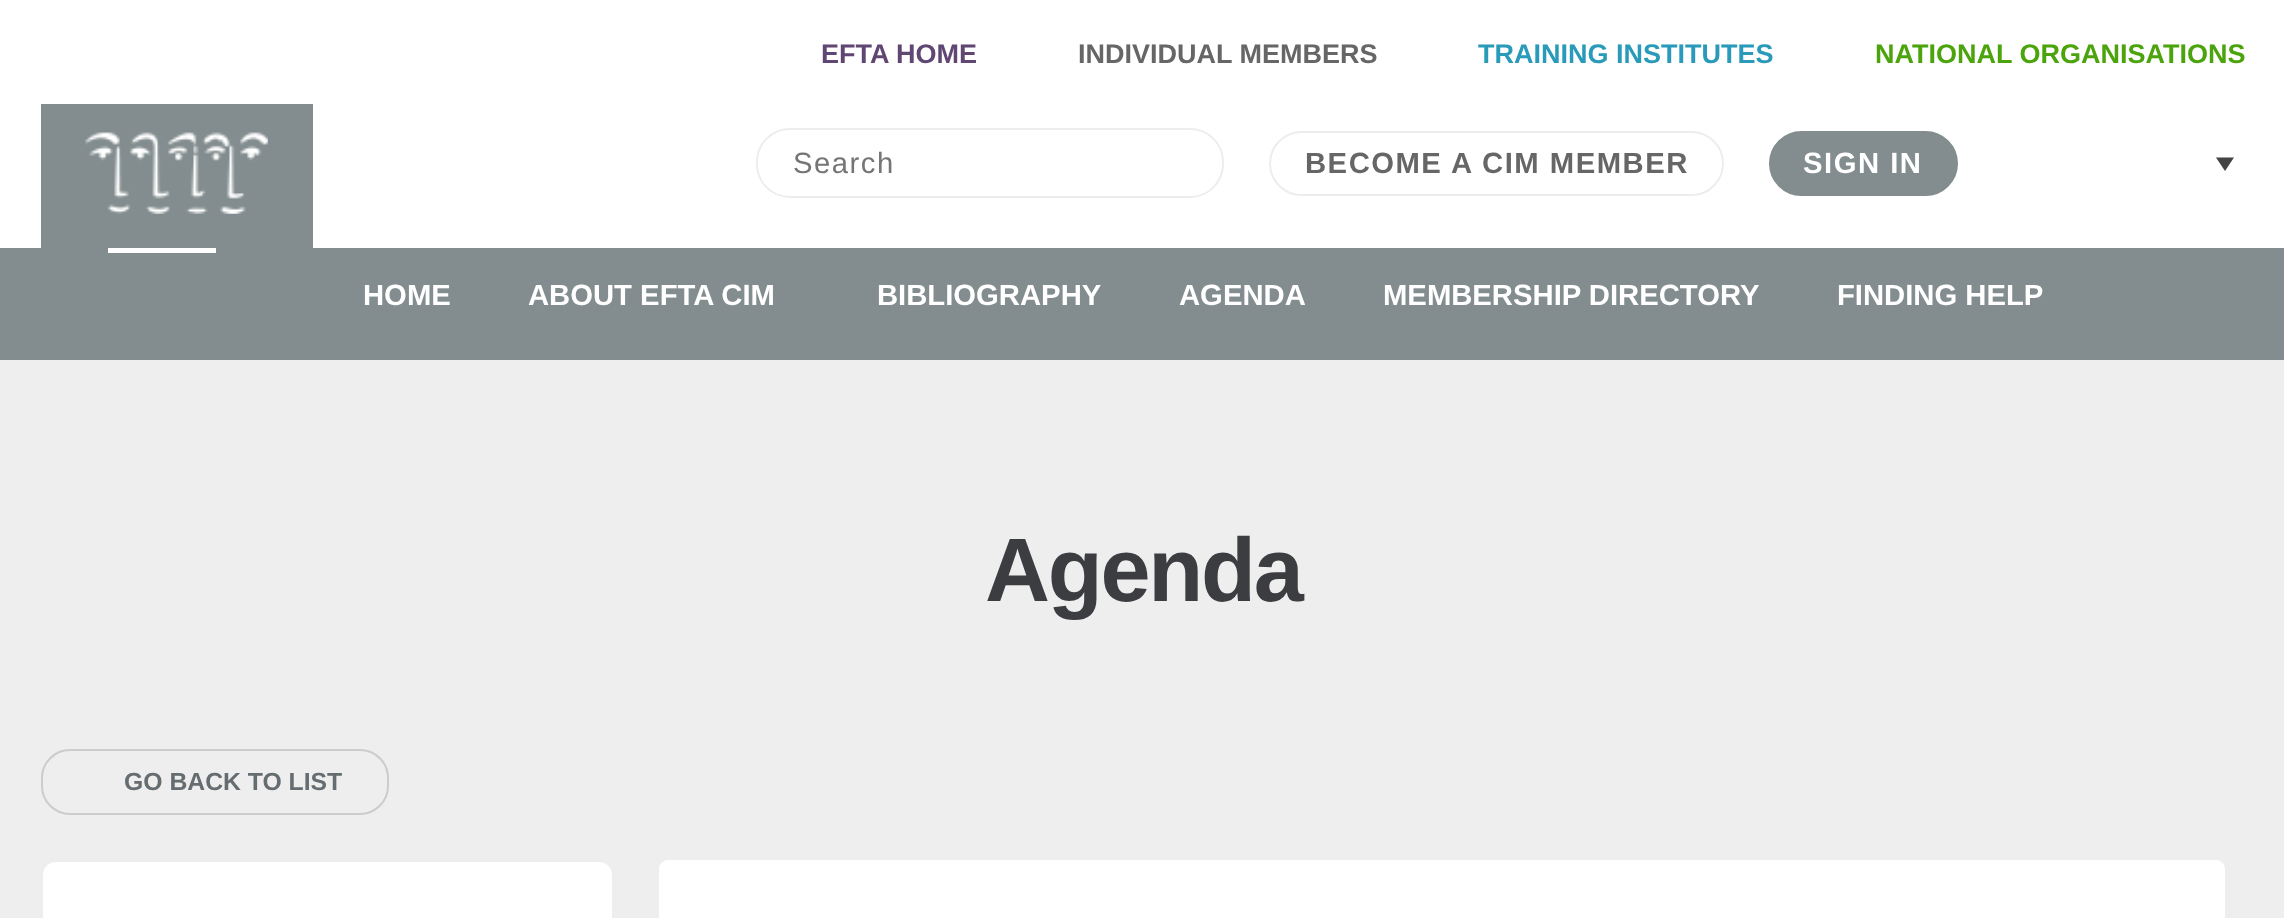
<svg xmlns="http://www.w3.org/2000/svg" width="2284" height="918">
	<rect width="100%" height="100%" fill="#EEEEEE" />
	<rect x="0" y="0" width="2284" height="248" fill="#FFFFFF" />
	<text x="821" y="63" font-family="Liberation Sans" font-size="27" font-weight="700" fill="#604672">EFTA HOME</text>
	<text x="1078" y="63" font-family="Liberation Sans" font-size="27" font-weight="700" fill="#666666">INDIVIDUAL MEMBERS</text>
	<text x="1478" y="63" font-family="Liberation Sans" font-size="27" font-weight="700" fill="#299ABA">TRAINING INSTITUTES</text>
	<text x="1875" y="63" font-family="Liberation Sans" font-size="27" font-weight="700" fill="#4CA40C">NATIONAL ORGANISATIONS</text>
	<rect x="41" y="104" width="272" height="144" fill="#838D8F" />
	<image x="85" y="132" width="183" height="82" href="assets/img1.png" />
	<rect x="757" y="129" width="466" height="68" rx="33" fill="none" stroke="#EDEDED" stroke-width="2" />
	<text x="793" y="173" font-family="Liberation Sans" font-size="29.25" letter-spacing="1.5" fill="#757575">Search</text>
	<rect x="1270" y="132" width="453" height="63" rx="31.5" fill="none" stroke="#EDEDED" stroke-width="2" />
	<text x="1305" y="173" font-family="Liberation Sans" font-size="29.25" font-weight="700" letter-spacing="1.5" fill="#666666">BECOME A CIM MEMBER</text>
	<rect x="1770" y="132" width="187" height="63" rx="31.5" fill="#838D8F" stroke="#838D8F" stroke-width="2" />
	<text x="1803" y="173" font-family="Liberation Sans" font-size="29.25" font-weight="700" letter-spacing="1.5" fill="#FFFFFF">SIGN IN</text>
	<path d="M2216 157.5H2234L2225 171Z" fill="#444444" />
	<rect x="0" y="248" width="2284" height="112" fill="#838D8F" />
	<rect x="108" y="248" width="108" height="5" fill="#FFFFFF" />
	<g font-family="Liberation Sans" font-size="29.25" font-weight="700" fill="#FFFFFF">
		<text x="363" y="305">HOME</text>
		<text x="528" y="305">ABOUT EFTA CIM</text>
		<text x="877" y="305">BIBLIOGRAPHY</text>
		<text x="1179" y="305">AGENDA</text>
		<text x="1383" y="305">MEMBERSHIP DIRECTORY</text>
		<text x="1837" y="305">FINDING HELP</text>
	</g>
	<text x="985" y="601" font-family="Liberation Sans" font-size="90" font-weight="700" letter-spacing="-2.25" fill="#3C3D41">Agenda</text>
	<rect x="42" y="750" width="346" height="64" rx="28" fill="none" stroke="#CCCCCC" stroke-width="2" />
	<text x="124" y="790" font-family="Liberation Sans" font-size="24.75" font-weight="700" fill="#666D70">GO BACK TO LIST</text>
	<rect x="42" y="861" width="571" height="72" rx="13" fill="#FAFAFA" stroke="#EEEDED" stroke-width="2" />
	<path d="M57 862H598C605.5 862 612 868.5 612 876V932H43V876C43 868.5 49.5 862 57 862Z" fill="#FFFFFF" />
	<rect x="659" y="860" width="1566" height="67" rx="9" fill="#FFFFFF" />
</svg>
